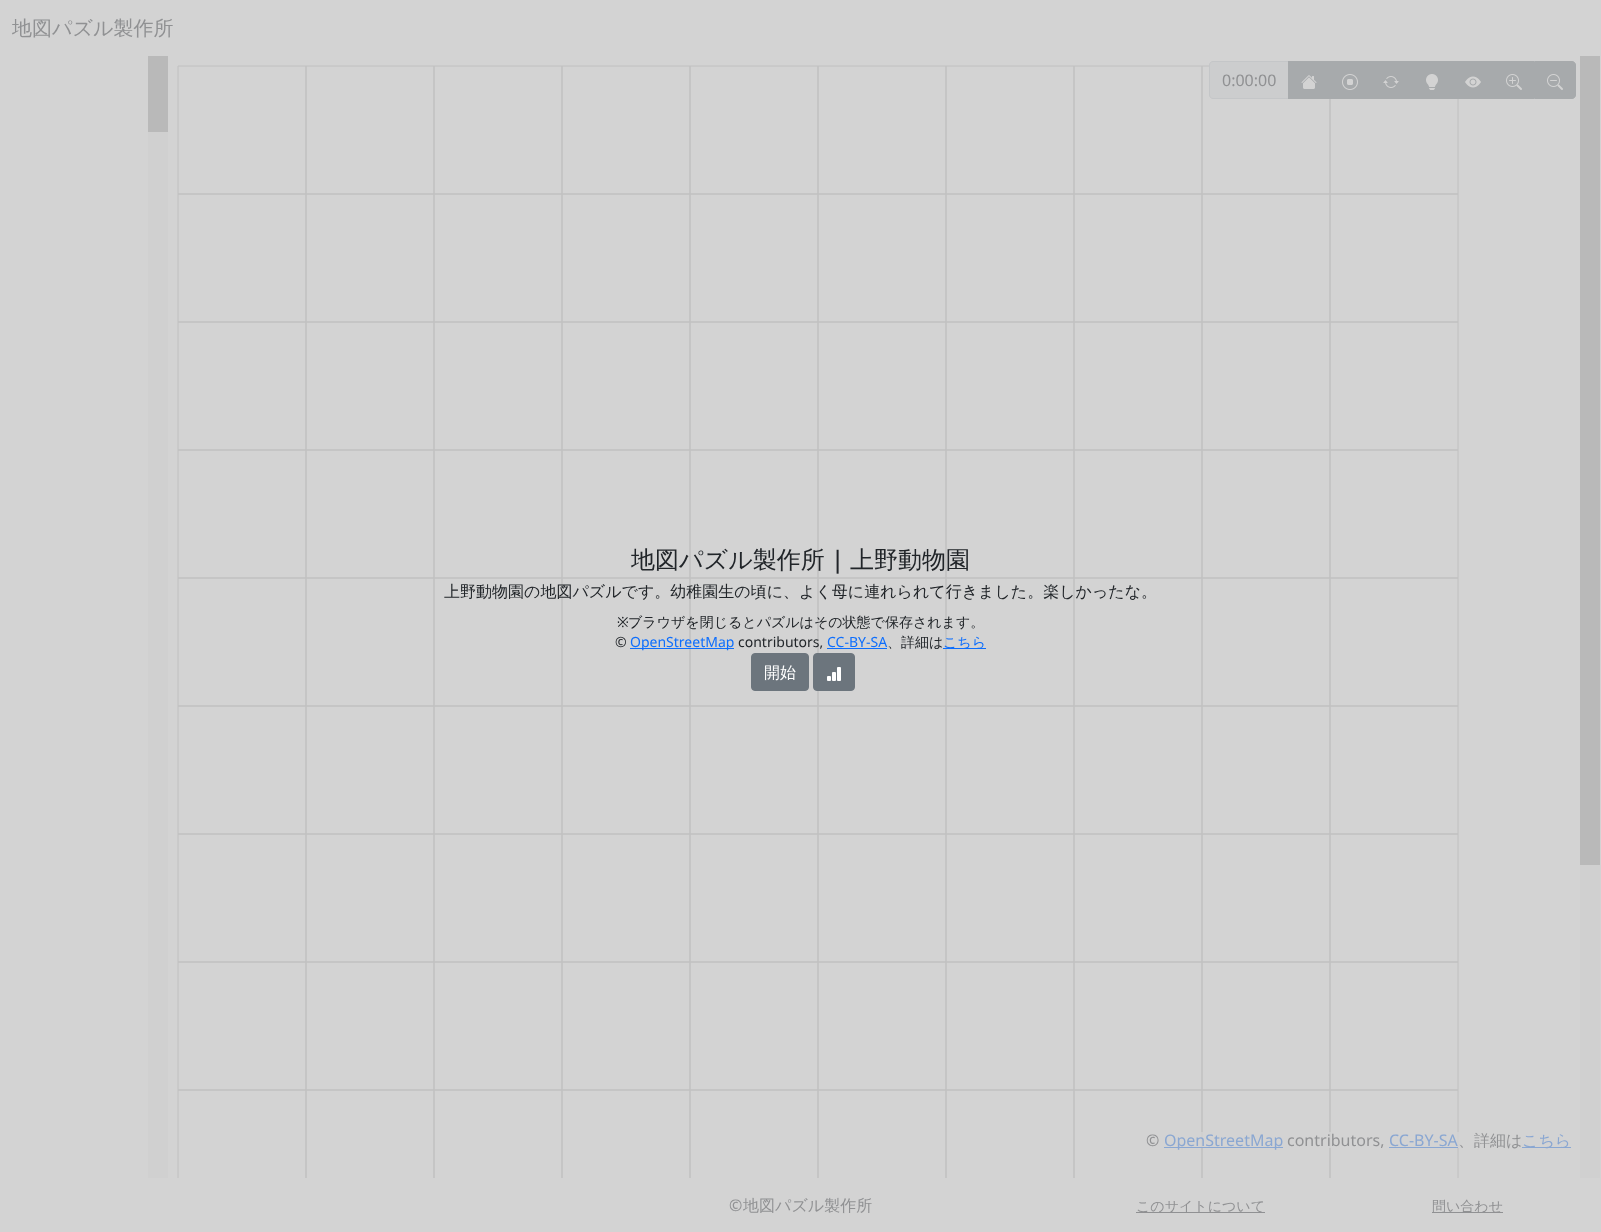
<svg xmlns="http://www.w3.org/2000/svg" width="1601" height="1232">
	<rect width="100%" height="100%" fill="#D3D3D3" />
	<text x="12" y="35" font-family="WenQuanYi Zen Hei" font-size="20" font-weight="500" fill="#909193">地図パズル製作所</text>
	<image x="148" y="56" width="1452" height="1122" href="assets/img2.png" />
	<text x="631" y="568" font-family="WenQuanYi Zen Hei" font-size="24" font-weight="500" fill="#212529">地図パズル製作所</text>
	<text x="831" y="568" font-family="Noto Sans" font-size="24" font-weight="500" fill="#212529">|</text>
	<text x="850" y="568" font-family="WenQuanYi Zen Hei" font-size="24" font-weight="500" fill="#212529">上野動物園</text>
	<text x="444" y="597" font-family="WenQuanYi Zen Hei" font-size="16" font-weight="500" fill="#212529">上野動物園の地図パズルです。幼稚園生の頃に、よく母に連れられて行きました。楽しかったな。</text>
	<text x="617" y="627" font-family="Noto Sans" font-size="14" fill="#212529">※</text>
	<text x="628" y="627" font-family="WenQuanYi Zen Hei" font-size="14" font-weight="500" fill="#212529">ブラウザを閉じるとパズルはその状態で保存されます。</text>
	<text x="615" y="647" font-family="Noto Sans" font-size="14" fill="#212529">©</text>
	<rect x="630" y="648" width="104" height="1" fill="#0D6EFD" />
	<text x="630" y="647" font-family="Noto Sans" font-size="14" fill="#0D6EFD">OpenStreetMap</text>
	<text x="738" y="647" font-family="Noto Sans" font-size="14" fill="#212529">contributors,</text>
	<text x="827" y="647" font-family="Noto Sans" font-size="14" fill="#0D6EFD">CC-BY-SA</text>
	<rect x="827" y="648" width="60" height="1" fill="#0D6EFD" />
	<text x="887" y="647" font-family="WenQuanYi Zen Hei" font-size="14" font-weight="500" fill="#212529">、詳細は</text>
	<rect x="943" y="648" width="43" height="1" fill="#0D6EFD" />
	<text x="943" y="647" font-family="WenQuanYi Zen Hei" font-size="14" font-weight="500" fill="#0D6EFD">こちら</text>
	<rect x="751.5" y="653.5" width="57" height="37" rx="3.5" fill="#6C757D" stroke="#6C757D" />
	<text x="764" y="678" font-family="WenQuanYi Zen Hei" font-size="16" font-weight="500" fill="#FFFFFF">開始</text>
	<rect x="813.5" y="653.5" width="41" height="37" rx="3.5" fill="#6C757D" stroke="#6C757D" />
	<image x="827" y="667" width="14" height="14" href="assets/img1.png" />
	<path d="M1213 61.5H1288.5V98.5H1213C1211 98.5 1209.5 97 1209.5 95V65C1209.5 63 1211 61.5 1213 61.5Z" fill="#CCCDCE" stroke="#C4C6C8" />
	<text x="1222" y="86" font-family="Noto Sans" font-size="16" fill="#909193">0:00:00</text>
	<rect x="1288" y="61" width="246" height="38" fill="#A7AAAC" />
	<image x="1301" y="75" width="16" height="14" href="assets/img3.png" />
	<path d="M1534.5 61.5H1572C1574 61.5 1575.5 63 1575.5 65V95C1575.5 97 1574 98.5 1572 98.5H1534.5Z" fill="#A7AAAC" stroke="#A7AAAC" />
	<image x="1547" y="74" width="16" height="16" href="assets/img4.png" />
	<image x="1342" y="74" width="16" height="16" href="assets/img5.png" />
	<image x="1383" y="76" width="16" height="12" href="assets/img6.png" />
	<image x="1426" y="74" width="12" height="16" href="assets/img7.png" />
	<image x="1465" y="76" width="16" height="12" href="assets/img8.png" />
	<image x="1506" y="74" width="16" height="16" href="assets/img9.png" />
	<rect x="1201" y="1132" width="258" height="16" fill="#D3D3D3" fill-opacity="0.75" />
	<text x="1146" y="1146" font-family="Noto Sans" font-size="16" fill="#909193">©</text>
	<rect x="1164" y="1147" width="119" height="1" fill="#8AA7D2" />
	<text x="1164" y="1146" font-family="Noto Sans" font-size="16" fill="#8AA7D2">OpenStreetMap</text>
	<text x="1287" y="1146" font-family="Noto Sans" font-size="16" fill="#909193">contributors,</text>
	<text x="1389" y="1146" font-family="Noto Sans" font-size="16" fill="#8AA7D2">CC-BY-SA</text>
	<rect x="1389" y="1147" width="69" height="1" fill="#8AA7D2" />
	<text x="1458" y="1146" font-family="WenQuanYi Zen Hei" font-size="16" font-weight="500" fill="#909193">、詳細は</text>
	<rect x="1522" y="1147" width="49" height="1" fill="#8AA7D2" />
	<text x="1522" y="1146" font-family="WenQuanYi Zen Hei" font-size="16" font-weight="500" fill="#8AA7D2">こちら</text>
	<text x="729" y="1211" font-family="Noto Sans" font-size="16" fill="#909193">©</text>
	<text x="743" y="1211" font-family="WenQuanYi Zen Hei" font-size="16" font-weight="500" fill="#909193">地図パズル製作所</text>
	<rect x="1136" y="1212" width="129" height="1" fill="#909193" />
	<text x="1136" y="1211" font-family="WenQuanYi Zen Hei" font-size="14" font-weight="500" fill="#909193">このサイトについて</text>
	<rect x="1432" y="1212" width="71" height="1" fill="#909193" />
	<text x="1432" y="1211" font-family="WenQuanYi Zen Hei" font-size="14" font-weight="500" fill="#909193">問い合わせ</text>
</svg>
